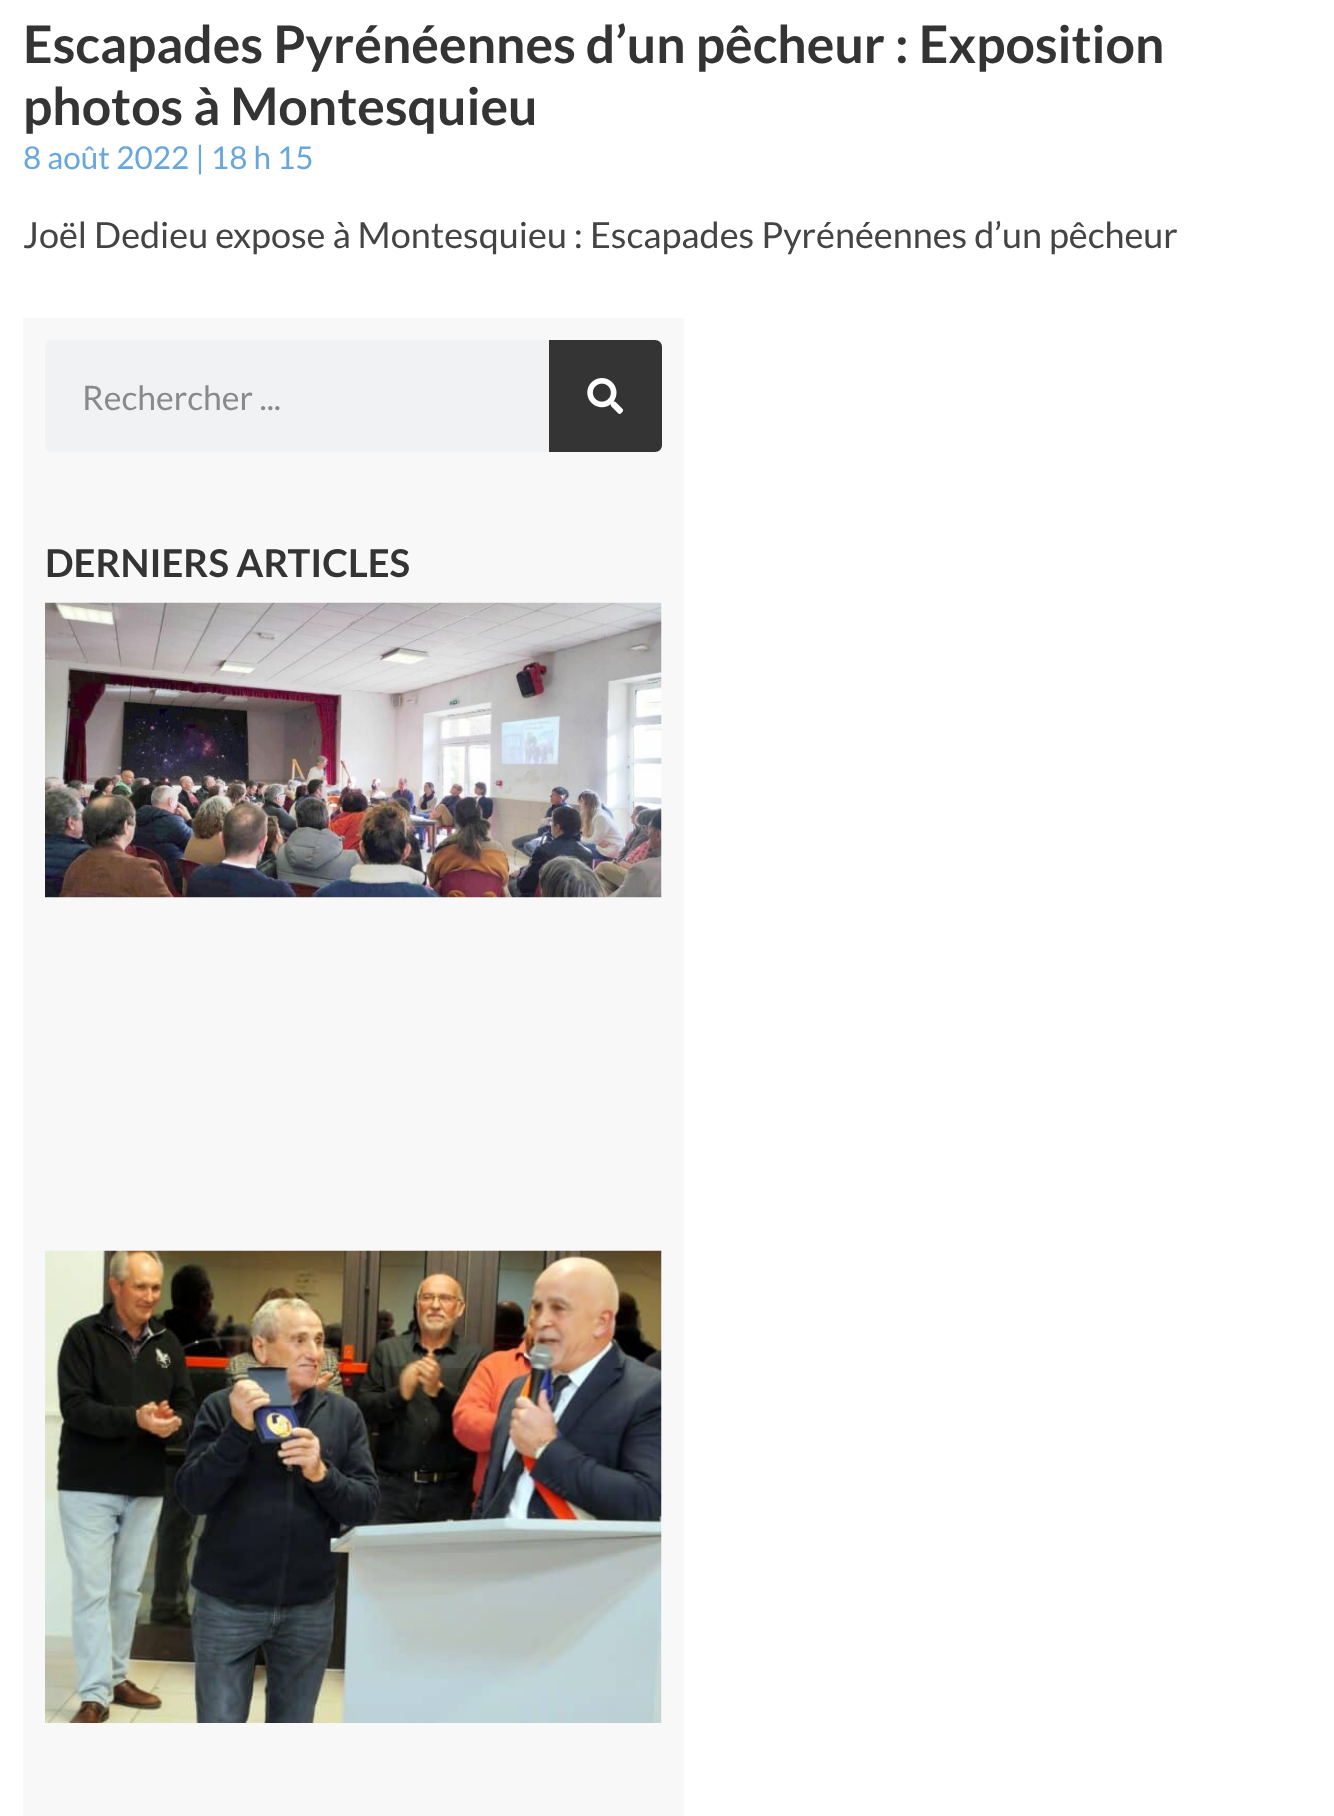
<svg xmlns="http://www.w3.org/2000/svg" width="1334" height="1816">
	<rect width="100%" height="100%" fill="#FFFFFF" />
	<g font-family="Lato" font-size="51.75" font-weight="700" fill="#343434">
		<text x="23" y="63">Escapades Pyrénéennes d’un pêcheur : Exposition</text>
		<text x="23" y="125">photos à Montesquieu</text>
	</g>
	<text x="23" y="169" font-family="Lato" font-size="31.5" fill="#68A7DD">8 août 2022 | 18 h 15</text>
	<text x="23" y="248" font-family="Lato" font-size="36" fill="#444444">Joël Dedieu expose à Montesquieu : Escapades Pyrénéennes d’un pêcheur</text>
	<rect x="23" y="318" width="661" height="1498" fill="#F8F8F8" />
	<rect x="45" y="340" width="617" height="112" rx="7" fill="#F1F2F3" />
	<text x="82" y="410" font-family="Lato" font-size="33.75" fill="#898A8A">Rechercher ...</text>
	<path d="M549 340H655C659 340 662 343 662 347V445C662 449 659 452 655 452H549Z" fill="#343434" />
	<image x="587" y="378" width="36" height="36" href="assets/img1.png" />
	<text x="45" y="577" font-family="Lato" font-size="38.25" font-weight="700" fill="#343434">DERNIERS ARTICLES</text>
	<image x="45" y="602" width="617" height="296" href="assets/img2.png" />
	<image x="45" y="1250" width="617" height="473" href="assets/img3.png" />
</svg>
